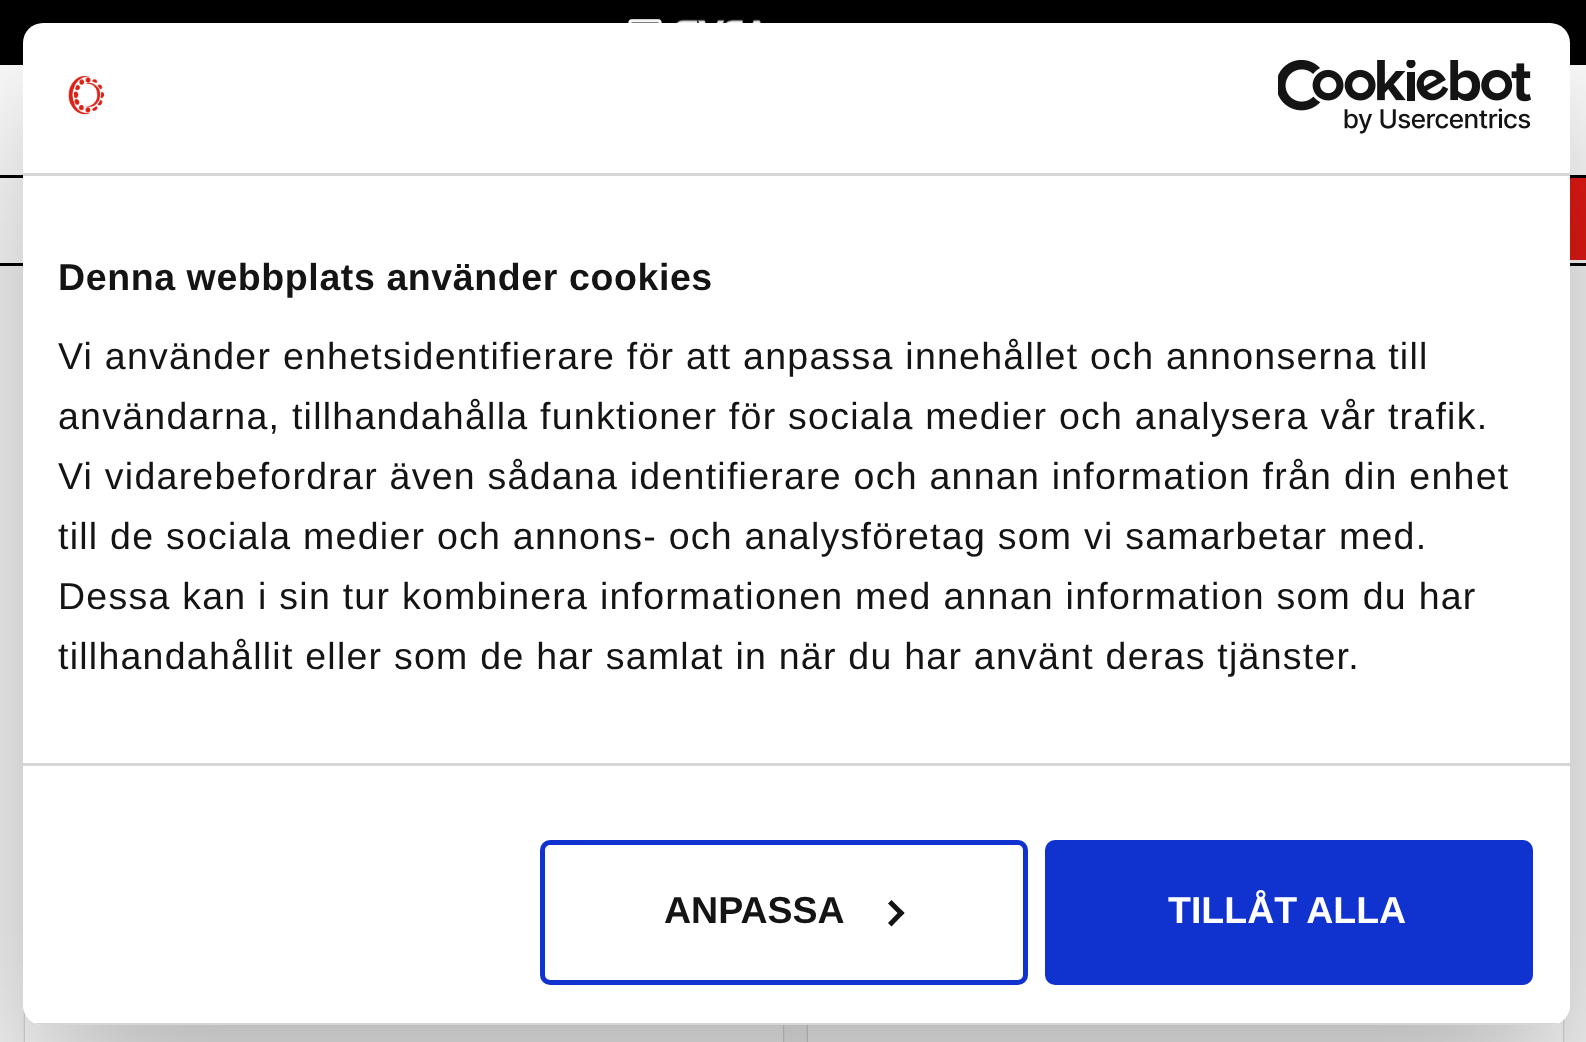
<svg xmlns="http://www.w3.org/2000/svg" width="1586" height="1042">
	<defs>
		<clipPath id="clip1"><path d="M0 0H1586V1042H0ZM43 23H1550C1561 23 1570 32 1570 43V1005C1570 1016 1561 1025 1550 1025H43C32 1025 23 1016 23 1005V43C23 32 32 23 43 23Z" clip-rule="evenodd" /></clipPath>
		<clipPath id="clip2"><rect x="23" y="23" width="1547" height="1002" rx="20" /></clipPath>
	</defs>
	<rect width="100%" height="100%" fill="#FAFAFA" />
	<rect x="0" y="65" width="1586" height="110" fill="#FFFFFF" />
	<rect x="0" y="0" width="1586" height="65" fill="#000000" />
	<image x="628" y="19" width="34" height="4" href="assets/img1.png" />
	<image x="676" y="19" width="85" height="4" href="assets/img2.png" />
	<rect x="0" y="178" width="1586" height="85" fill="#FFFFFF" />
	<rect x="0" y="175" width="1586" height="3" fill="#000000" />
	<rect x="0" y="263" width="1586" height="3" fill="#000000" />
	<rect x="1570" y="178" width="16" height="82" fill="#E41A14" />
	<rect x="25" y="845" width="758" height="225" rx="25" fill="#868686" fill-opacity="0.8" filter="blur(1px)" />
	<rect x="25" y="1013" width="758" height="29" fill="#FFFFFF" />
	<rect x="808" y="845" width="755" height="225" rx="25" fill="#868686" fill-opacity="0.8" filter="blur(1px)" />
	<rect x="808" y="1020" width="755" height="22" fill="#FFFFFF" />
	<g clip-path="url(#clip1)">
		<rect x="23" y="103" width="1547" height="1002" rx="20" fill="#000000" fill-opacity="0.3" filter="blur(85px)" />
	</g>
	<rect x="23" y="23" width="1547" height="1002" rx="20" fill="#FFFFFF" />
	<rect x="23" y="173" width="1547" height="3" fill="#D6D6D6" />
	<image x="68" y="75" width="37" height="40" href="assets/img3.png" />
	<image x="1278" y="60" width="253" height="74" href="assets/img4.png" />
	<rect x="23" y="763" width="1547" height="3" fill="#D6D6D6" />
	<text x="58" y="290" font-family="Liberation Sans" font-size="37.5" font-weight="700" letter-spacing="0.6" fill="#141414">Denna webbplats använder cookies</text>
	<g font-family="Liberation Sans" font-size="37.5" letter-spacing="1.25" fill="#141414">
		<text x="58" y="369">Vi använder enhetsidentifierare för att anpassa innehållet och annonserna till</text>
		<text x="58" y="429">användarna, tillhandahålla funktioner för sociala medier och analysera vår trafik.</text>
		<text x="58" y="489">Vi vidarebefordrar även sådana identifierare och annan information från din enhet</text>
		<text x="58" y="549">till de sociala medier och annons- och analysföretag som vi samarbetar med.</text>
		<text x="58" y="609">Dessa kan i sin tur kombinera informationen med annan information som du har</text>
		<text x="58" y="669">tillhandahållit eller som de har samlat in när du har använt deras tjänster.</text>
	</g>
	<g clip-path="url(#clip2)">
		<rect x="34" y="1023" width="1525" height="2" fill="#D6D6D6" />
	</g>
	<rect x="542.5" y="842.5" width="483" height="140" rx="7.5" fill="none" stroke="#1032CF" stroke-width="5" />
	<text x="664" y="923" font-family="Liberation Sans" font-size="37.5" font-weight="700" fill="#141414">ANPASSA</text>
	<path d="M891.5 900L904.5 913L901 916.5L888 903.5Z" fill="#141414" />
	<path d="M901 909.5L904.5 913L891.5 926.5L888 923Z" fill="#141414" />
	<rect x="1047.5" y="842.5" width="483" height="140" rx="7.5" fill="#1032CF" stroke="#1032CF" stroke-width="5" />
	<text x="1168" y="923" font-family="Liberation Sans" font-size="37.5" font-weight="700" fill="#FFFFFF">TILLÅT ALLA</text>
</svg>
